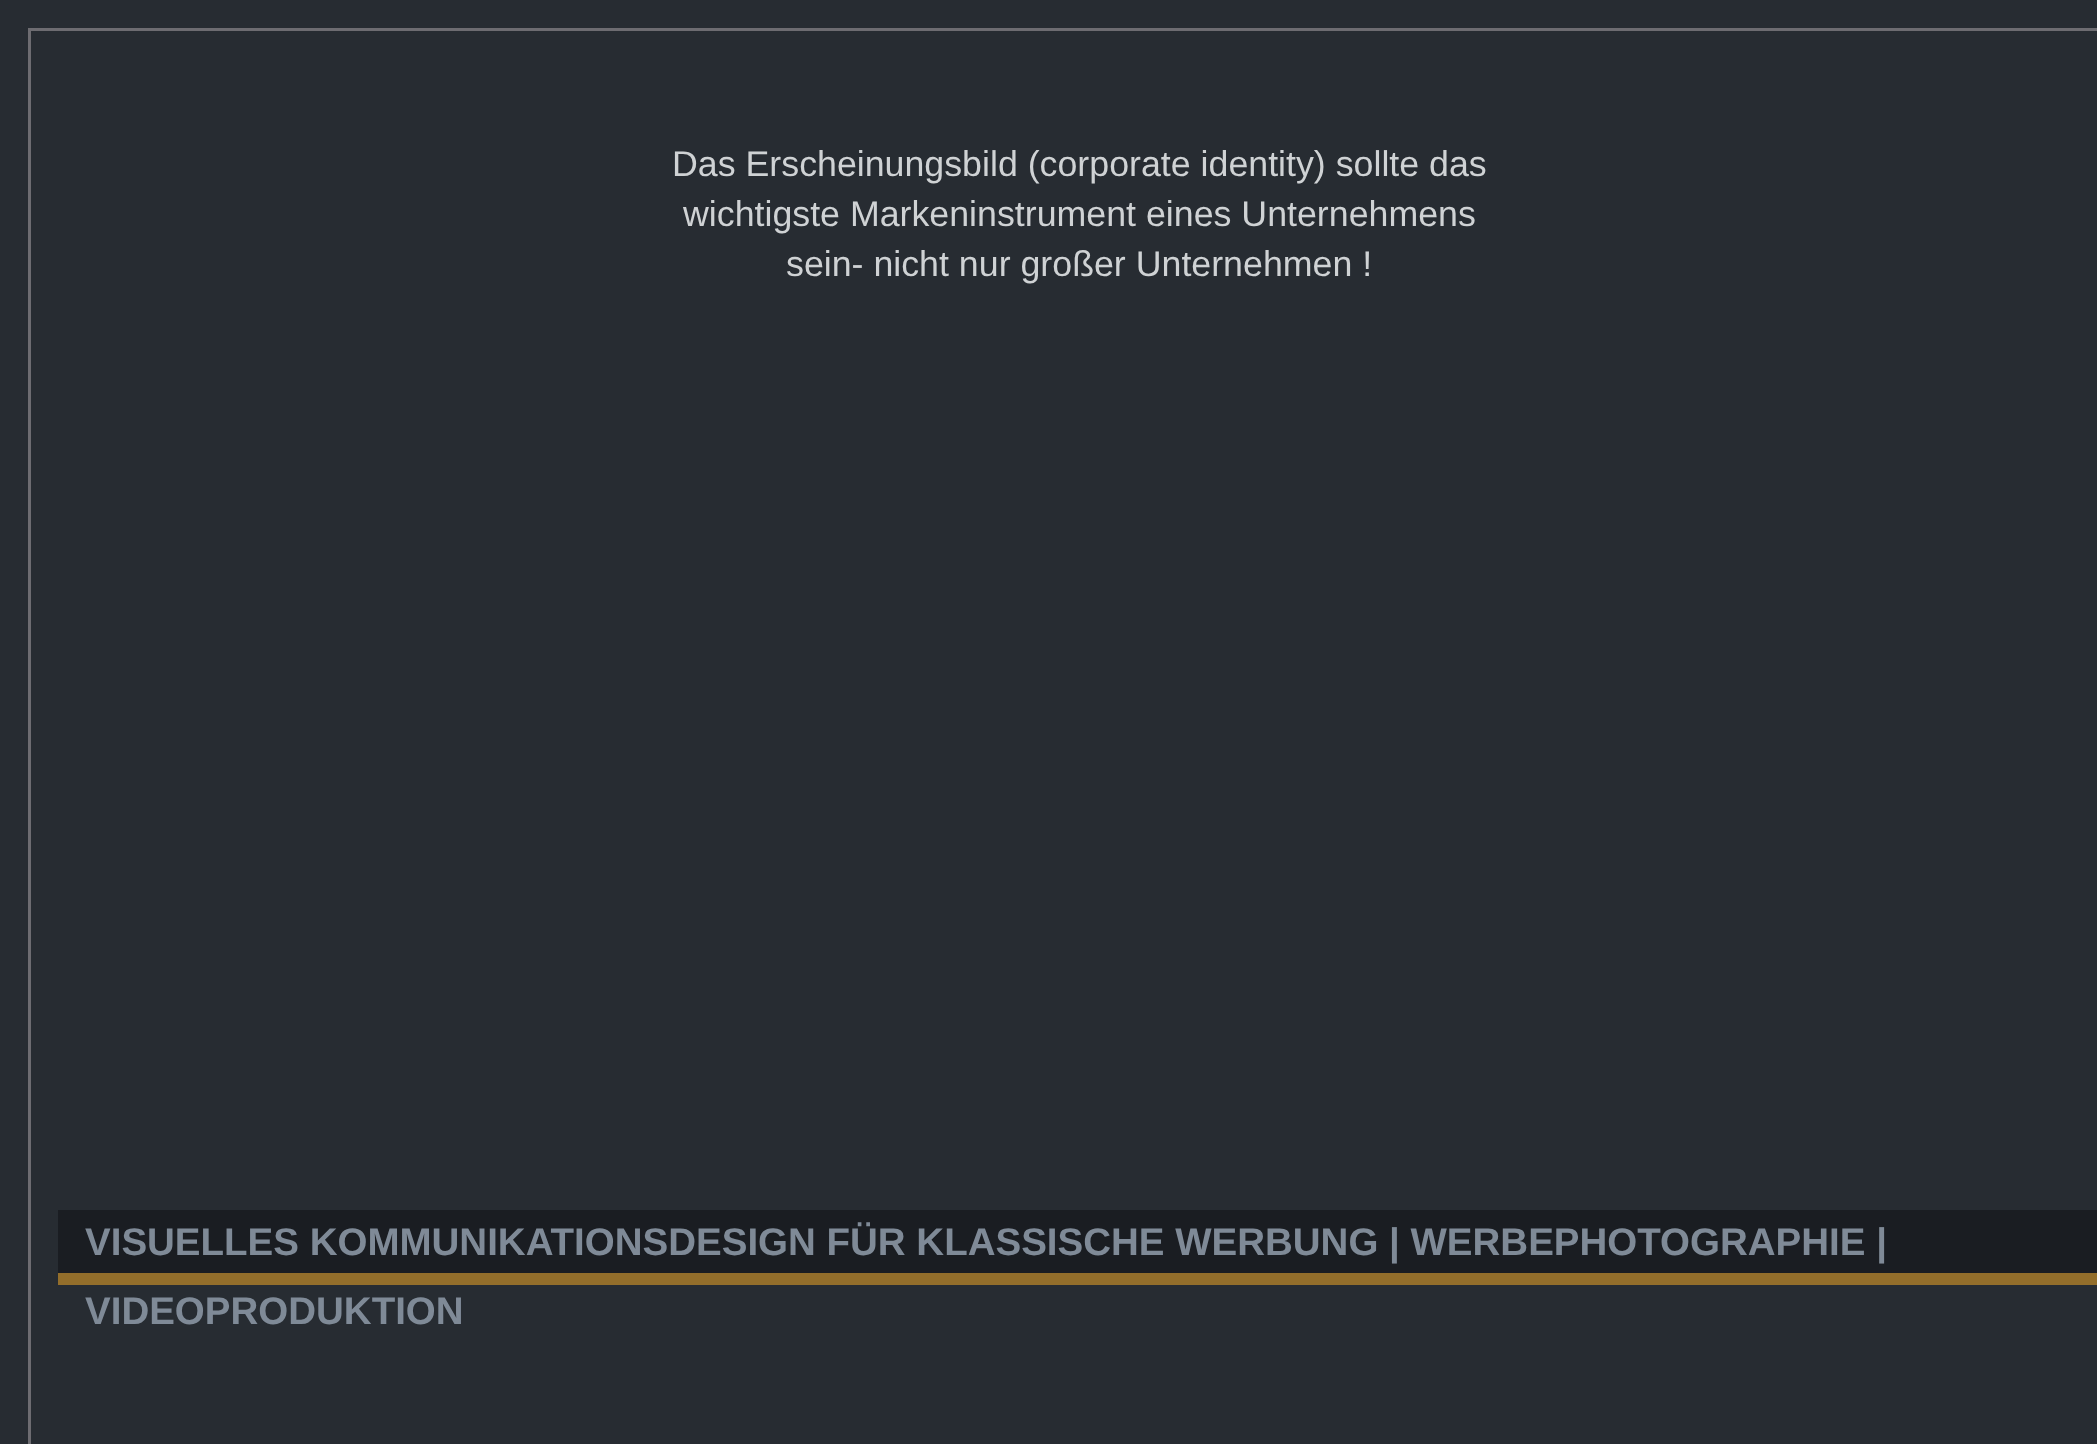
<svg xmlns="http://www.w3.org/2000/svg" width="2097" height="1444">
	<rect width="100%" height="100%" fill="#272C32" />
	<rect x="29.5" y="29.5" width="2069" height="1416" fill="none" stroke="#6D6C71" stroke-width="3" />
	<g font-family="Liberation Sans" font-size="35.75" fill="#CFD2D4">
		<text x="672" y="176">Das Erscheinungsbild (corporate identity) sollte das</text>
		<text x="683" y="226">wichtigste Markeninstrument eines Unternehmens</text>
		<text x="786" y="276">sein- nicht nur großer Unternehmen !</text>
	</g>
	<rect x="58" y="1210" width="2039" height="63" fill="#1A1D22" />
	<g font-family="Liberation Sans" font-size="38.5" font-weight="700" fill="#7F8A97">
		<text x="85" y="1255">VISUELLES KOMMUNIKATIONSDESIGN FÜR KLASSISCHE WERBUNG | WERBEPHOTOGRAPHIE |</text>
		<text x="85" y="1324">VIDEOPRODUKTION</text>
	</g>
	<rect x="58" y="1273" width="2039" height="12" fill="#936E2B" />
</svg>
